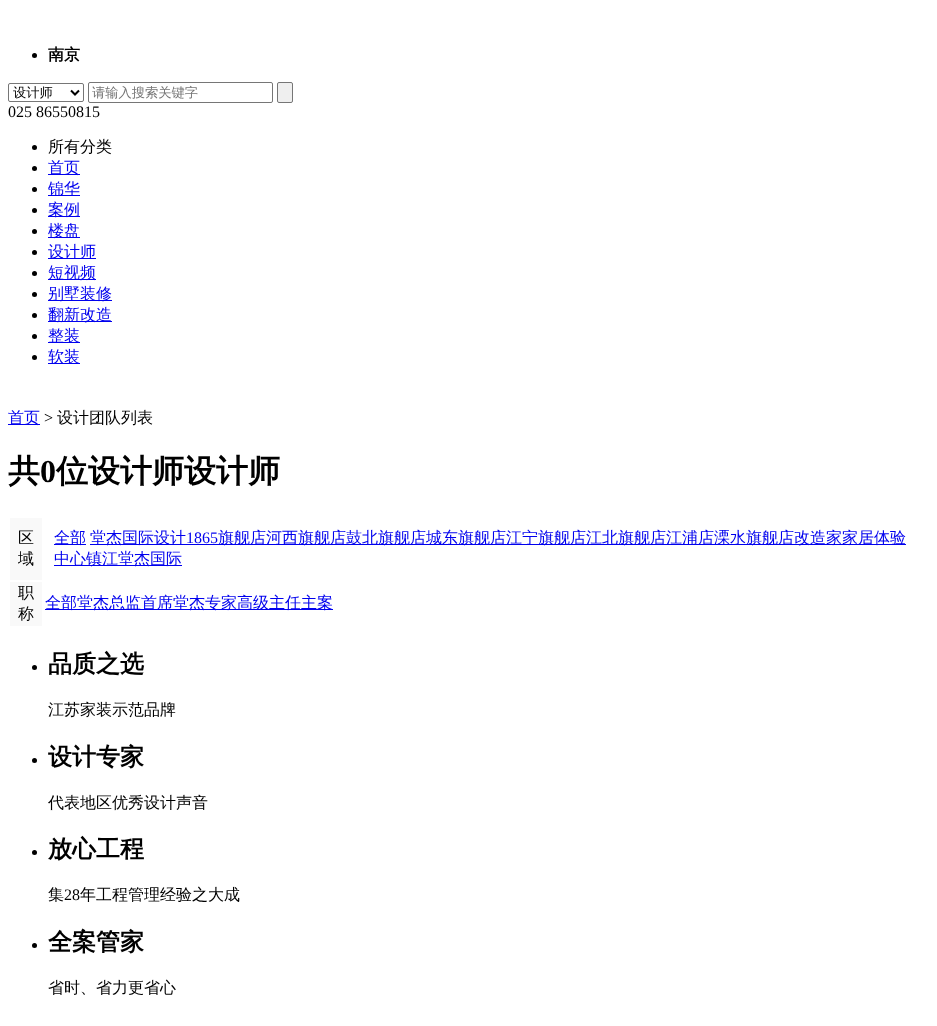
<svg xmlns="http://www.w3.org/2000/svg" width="937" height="1026">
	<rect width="100%" height="100%" fill="#FFFFFF" />
	<circle cx="34.5" cy="55.5" r="2.5" fill="#000000" />
	<text x="48" y="60" font-family="WenQuanYi Zen Hei" font-size="16" font-weight="700" fill="#000000">南京</text>
	<rect x="8.5" y="83.5" width="75" height="18" rx="1.5" fill="none" stroke="#767676" />
	<path d="M71 90.5L75 94.5L79 90.5" fill="none" stroke="#000000" stroke-width="2" />
	<text x="13" y="97" font-family="WenQuanYi Zen Hei" font-size="13.25" font-weight="500" fill="#000000">设计师</text>
	<rect x="88.5" y="82.5" width="184" height="20" rx="1.5" fill="none" stroke="#767676" />
	<text x="92" y="97" font-family="WenQuanYi Zen Hei" font-size="13.25" font-weight="500" fill="#757575">请输入搜索关键字</text>
	<rect x="277.5" y="82.5" width="15" height="20" rx="1.5" fill="#EFEFEF" stroke="#767676" />
	<text x="8" y="117" font-family="Liberation Serif" font-size="16" fill="#000000">025 86550815</text>
	<circle cx="34.5" cy="147.5" r="2.5" fill="#000000" />
	<text x="48" y="152" font-family="WenQuanYi Zen Hei" font-size="16" font-weight="500" fill="#000000">所有分类</text>
	<circle cx="34.5" cy="168.5" r="2.5" fill="#000000" />
	<rect x="48" y="174" width="32" height="1" fill="#0000EE" />
	<text x="48" y="173" font-family="WenQuanYi Zen Hei" font-size="16" font-weight="500" fill="#0000EE">首页</text>
	<circle cx="34.5" cy="189.5" r="2.5" fill="#000000" />
	<rect x="48" y="195" width="32" height="1" fill="#0000EE" />
	<text x="48" y="194" font-family="WenQuanYi Zen Hei" font-size="16" font-weight="500" fill="#0000EE">锦华</text>
	<circle cx="34.5" cy="210.5" r="2.5" fill="#000000" />
	<rect x="48" y="216" width="32" height="1" fill="#0000EE" />
	<text x="48" y="215" font-family="WenQuanYi Zen Hei" font-size="16" font-weight="500" fill="#0000EE">案例</text>
	<circle cx="34.5" cy="231.5" r="2.5" fill="#000000" />
	<rect x="48" y="237" width="32" height="1" fill="#0000EE" />
	<text x="48" y="236" font-family="WenQuanYi Zen Hei" font-size="16" font-weight="500" fill="#0000EE">楼盘</text>
	<circle cx="34.5" cy="252.5" r="2.5" fill="#000000" />
	<rect x="48" y="258" width="48" height="1" fill="#0000EE" />
	<text x="48" y="257" font-family="WenQuanYi Zen Hei" font-size="16" font-weight="500" fill="#0000EE">设计师</text>
	<circle cx="34.5" cy="273.5" r="2.5" fill="#000000" />
	<rect x="48" y="279" width="48" height="1" fill="#0000EE" />
	<text x="48" y="278" font-family="WenQuanYi Zen Hei" font-size="16" font-weight="500" fill="#0000EE">短视频</text>
	<circle cx="34.5" cy="294.5" r="2.5" fill="#000000" />
	<rect x="48" y="300" width="64" height="1" fill="#0000EE" />
	<text x="48" y="299" font-family="WenQuanYi Zen Hei" font-size="16" font-weight="500" fill="#0000EE">别墅装修</text>
	<circle cx="34.5" cy="315.5" r="2.5" fill="#000000" />
	<rect x="48" y="321" width="64" height="1" fill="#0000EE" />
	<text x="48" y="320" font-family="WenQuanYi Zen Hei" font-size="16" font-weight="500" fill="#0000EE">翻新改造</text>
	<circle cx="34.5" cy="336.5" r="2.5" fill="#000000" />
	<rect x="48" y="342" width="32" height="1" fill="#0000EE" />
	<text x="48" y="341" font-family="WenQuanYi Zen Hei" font-size="16" font-weight="500" fill="#0000EE">整装</text>
	<circle cx="34.5" cy="357.5" r="2.5" fill="#000000" />
	<rect x="48" y="363" width="32" height="1" fill="#0000EE" />
	<text x="48" y="362" font-family="WenQuanYi Zen Hei" font-size="16" font-weight="500" fill="#0000EE">软装</text>
	<rect x="8" y="424" width="32" height="1" fill="#0000EE" />
	<text x="8" y="423" font-family="WenQuanYi Zen Hei" font-size="16" font-weight="500" fill="#0000EE">首页</text>
	<text x="44" y="423" font-family="Liberation Serif" font-size="16" fill="#000000">&gt;</text>
	<text x="57" y="423" font-family="WenQuanYi Zen Hei" font-size="16" font-weight="500" fill="#000000">设计团队列表</text>
	<text x="8" y="482" font-family="WenQuanYi Zen Hei" font-size="32" font-weight="700" fill="#000000">共</text>
	<text x="40" y="482" font-family="Liberation Serif" font-size="32" font-weight="700" fill="#000000">0</text>
	<text x="56" y="482" font-family="WenQuanYi Zen Hei" font-size="32" font-weight="700" fill="#000000">位设计师设计师</text>
	<rect x="10" y="518" width="32" height="62" fill="#F9F9F9" />
	<g font-family="WenQuanYi Zen Hei" font-size="16" font-weight="500" fill="#000000">
		<text x="18" y="543">区</text>
		<text x="18" y="564">域</text>
	</g>
	<rect x="54" y="544" width="32" height="1" fill="#0000EE" />
	<text x="54" y="543" font-family="WenQuanYi Zen Hei" font-size="16" font-weight="500" fill="#0000EE">全部</text>
	<rect x="90" y="544" width="816" height="1" fill="#0000EE" />
	<text x="90" y="543" font-family="WenQuanYi Zen Hei" font-size="16" font-weight="500" fill="#0000EE">堂杰国际设计</text>
	<text x="186" y="543" font-family="Liberation Serif" font-size="16" fill="#0000EE">1865</text>
	<text x="218" y="543" font-family="WenQuanYi Zen Hei" font-size="16" font-weight="500" fill="#0000EE">旗舰店河西旗舰店鼓北旗舰店城东旗舰店江宁旗舰店江北旗舰店江浦店溧水旗舰店改造家家居体验</text>
	<rect x="54" y="565" width="128" height="1" fill="#0000EE" />
	<text x="54" y="564" font-family="WenQuanYi Zen Hei" font-size="16" font-weight="500" fill="#0000EE">中心镇江堂杰国际</text>
	<rect x="10" y="582" width="32" height="44" fill="#F9F9F9" />
	<g font-family="WenQuanYi Zen Hei" font-size="16" font-weight="500" fill="#000000">
		<text x="18" y="598">职</text>
		<text x="18" y="619">称</text>
	</g>
	<rect x="45" y="609" width="288" height="1" fill="#0000EE" />
	<text x="45" y="608" font-family="WenQuanYi Zen Hei" font-size="16" font-weight="500" fill="#0000EE">全部堂杰总监首席堂杰专家高级主任主案</text>
	<circle cx="34.5" cy="667.5" r="2.5" fill="#000000" />
	<text x="48" y="672" font-family="WenQuanYi Zen Hei" font-size="24" font-weight="700" fill="#000000">品质之选</text>
	<text x="48" y="715" font-family="WenQuanYi Zen Hei" font-size="16" font-weight="500" fill="#000000">江苏家装示范品牌</text>
	<circle cx="34.5" cy="760.5" r="2.5" fill="#000000" />
	<text x="48" y="765" font-family="WenQuanYi Zen Hei" font-size="24" font-weight="700" fill="#000000">设计专家</text>
	<text x="48" y="808" font-family="WenQuanYi Zen Hei" font-size="16" font-weight="500" fill="#000000">代表地区优秀设计声音</text>
	<circle cx="34.5" cy="852.5" r="2.5" fill="#000000" />
	<text x="48" y="857" font-family="WenQuanYi Zen Hei" font-size="24" font-weight="700" fill="#000000">放心工程</text>
	<text x="48" y="900" font-family="WenQuanYi Zen Hei" font-size="16" font-weight="500" fill="#000000">集</text>
	<text x="64" y="900" font-family="Liberation Serif" font-size="16" fill="#000000">28</text>
	<text x="80" y="900" font-family="WenQuanYi Zen Hei" font-size="16" font-weight="500" fill="#000000">年工程管理经验之大成</text>
	<circle cx="34.5" cy="945.5" r="2.5" fill="#000000" />
	<text x="48" y="950" font-family="WenQuanYi Zen Hei" font-size="24" font-weight="700" fill="#000000">全案管家</text>
	<text x="48" y="993" font-family="WenQuanYi Zen Hei" font-size="16" font-weight="500" fill="#000000">省时、省力更省心</text>
</svg>
